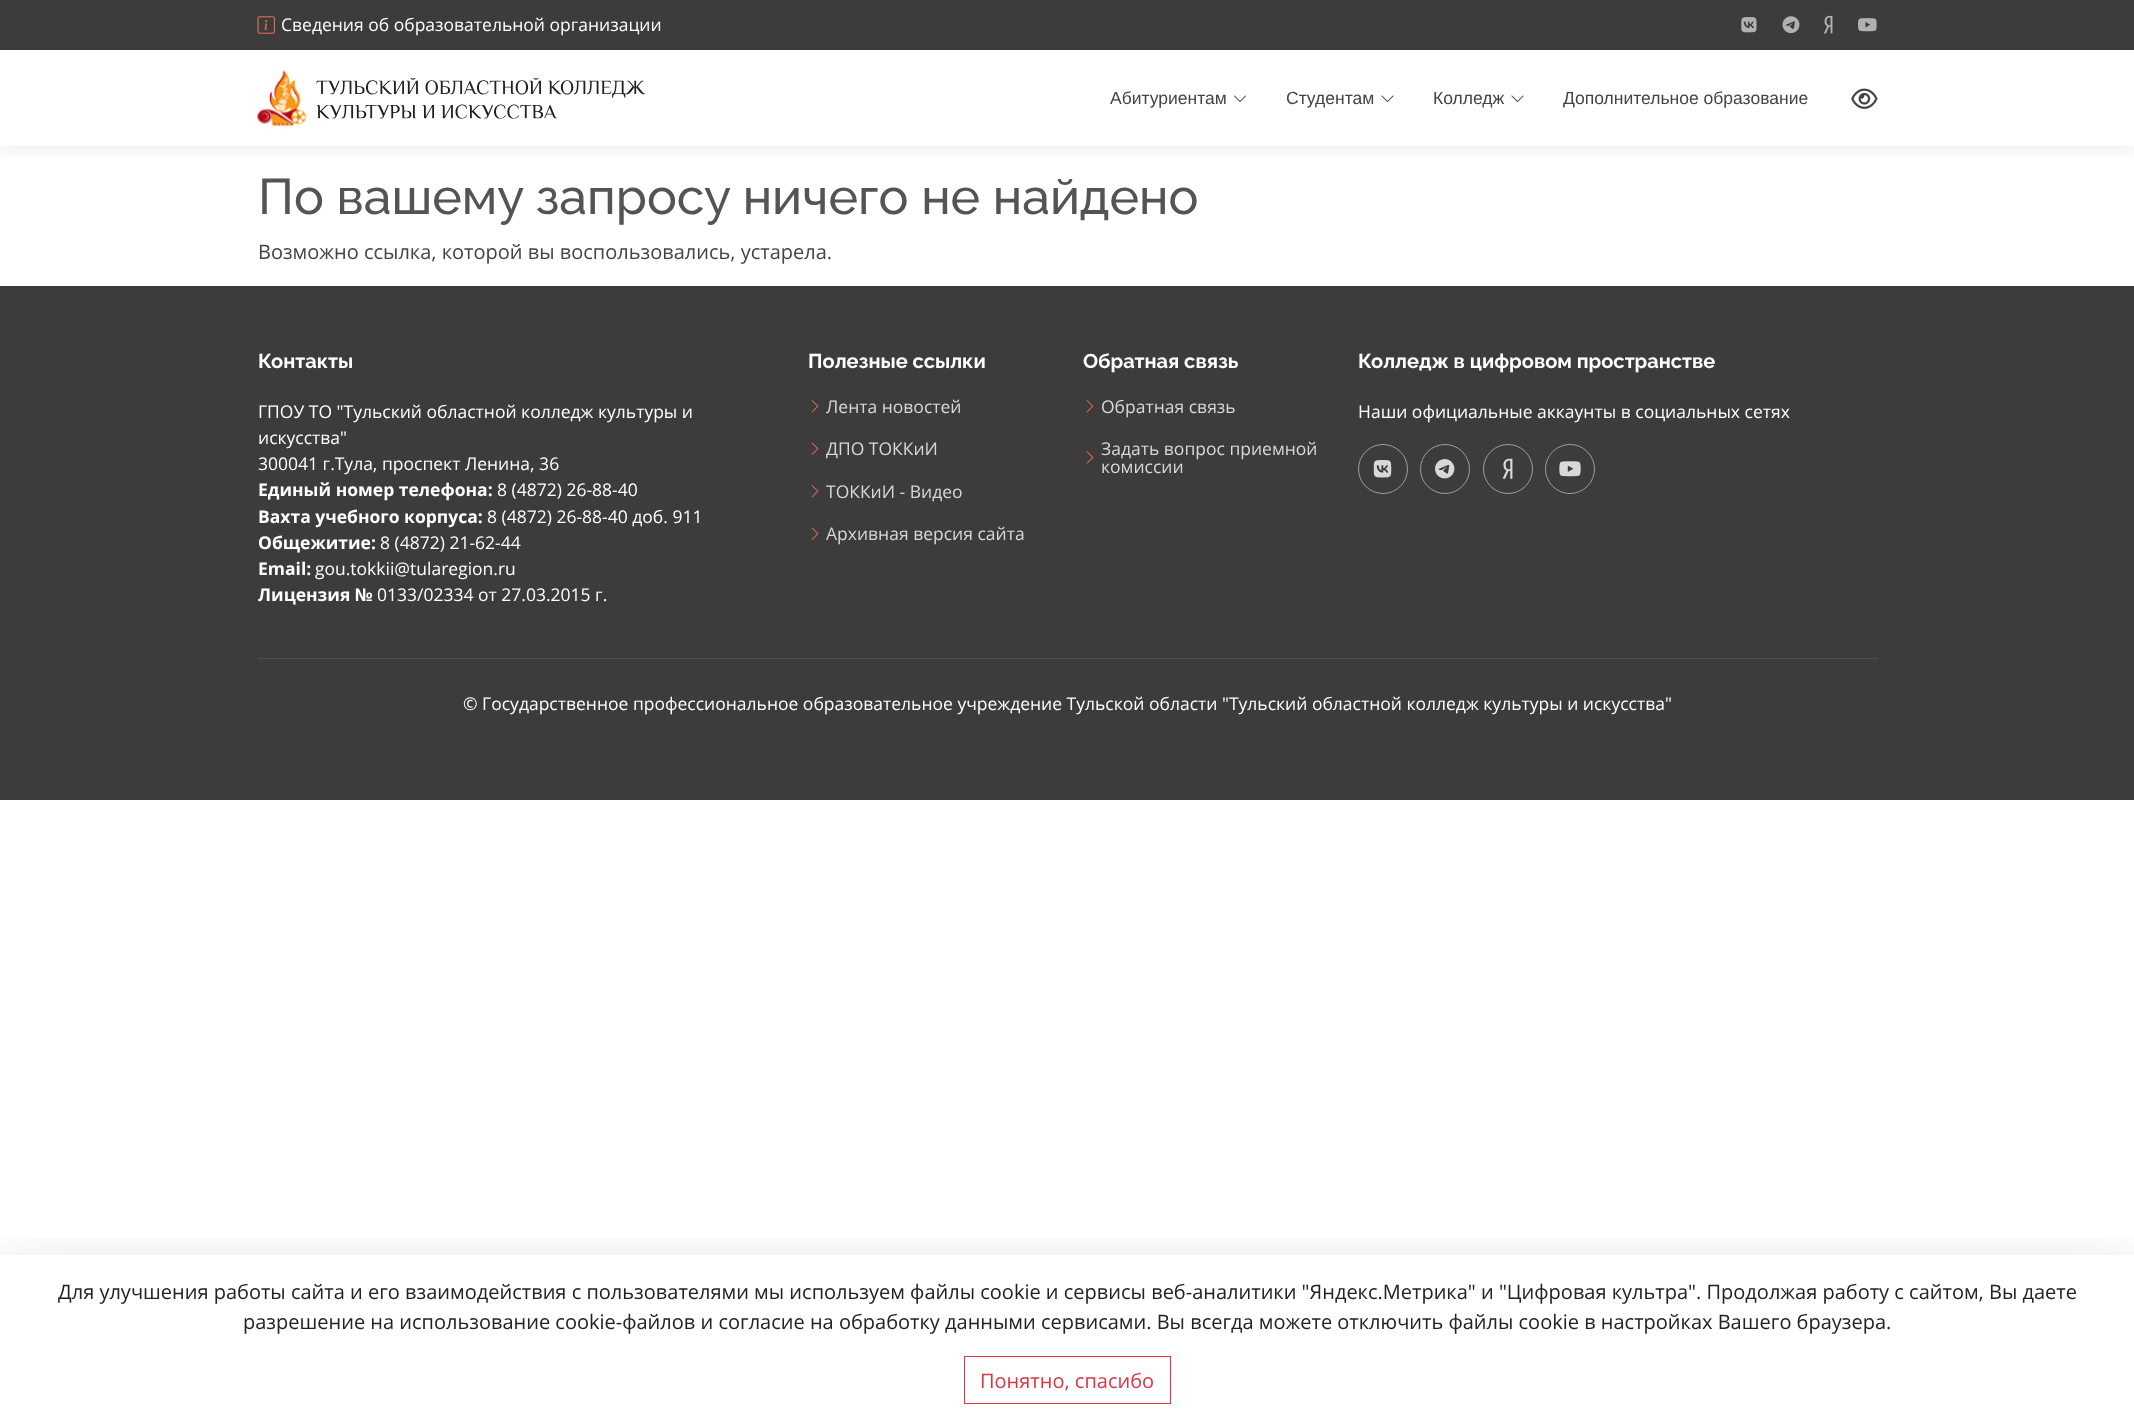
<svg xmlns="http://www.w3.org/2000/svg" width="2134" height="1425">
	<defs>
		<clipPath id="clip1"><rect x="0" y="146" width="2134" height="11" /></clipPath>
		<clipPath id="clip2"><rect x="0" y="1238" width="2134" height="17" /></clipPath>
	</defs>
	<rect width="100%" height="100%" fill="#FFFFFF" />
	<g clip-path="url(#clip1)">
		<rect x="0" y="0" width="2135" height="146" fill="#000000" fill-opacity="0.1" filter="blur(12.5px)" />
	</g>
	<rect x="0" y="0" width="2134" height="50" fill="#3C3C3C" />
	<image x="257" y="16" width="18" height="18" href="assets/img1.png" />
	<text x="281" y="31" font-family="Open Sans" font-size="17.5" fill="#FFFFFF">Сведения об образовательной организации</text>
	<image x="1741" y="17" width="16" height="16" href="assets/img2.png" />
	<image x="1782" y="16" width="18" height="18" href="assets/img3.png" />
	<image x="1823" y="15" width="10" height="19" href="assets/img4.png" />
	<image x="1858" y="18" width="19" height="14" href="assets/img5.png" />
	<image x="257" y="70" width="50" height="59" href="assets/img6.png" />
	<image x="316" y="78" width="329" height="41" href="assets/img7.png" />
	<text x="1110" y="104" font-family="Liberation Sans" font-size="17.5" fill="#444444">Абитуриентам</text>
	<image x="1234" y="95" width="12" height="7" href="assets/img8.png" />
	<text x="1286" y="104" font-family="Liberation Sans" font-size="17.5" fill="#444444">Студентам</text>
	<image x="1381" y="95" width="13" height="7" href="assets/img9.png" />
	<text x="1433" y="104" font-family="Liberation Sans" font-size="17.5" fill="#444444">Колледж</text>
	<image x="1511" y="95" width="13" height="7" href="assets/img9.png" />
	<text x="1563" y="104" font-family="Liberation Sans" font-size="17.5" fill="#444444">Дополнительное образование</text>
	<image x="1851" y="88" width="27" height="21" href="assets/img10.png" />
	<text x="258" y="214" font-family="Raleway" font-size="50" font-weight="500" fill="#545454">По вашему запросу ничего не найдено</text>
	<text x="258" y="259" font-family="Open Sans" font-size="20" fill="#444444">Возможно ссылка, которой вы воспользовались, устарела.</text>
	<rect x="0" y="286" width="2134" height="514" fill="#3C3C3C" />
	<text x="258" y="368" font-family="Raleway" font-size="20" font-weight="700" fill="#FFFFFF">Контакты</text>
	<g font-family="Open Sans" font-size="17.5" fill="#FFFFFF">
		<text x="258" y="418">ГПОУ ТО "Тульский областной колледж культуры и</text>
		<text x="258" y="444">искусства"</text>
		<text x="258" y="470">300041 г.Тула, проспект Ленина, 36</text>
	</g>
	<text x="258" y="496" font-family="Open Sans" font-size="17.5" font-weight="700" fill="#FFFFFF">Единый номер телефона:</text>
	<text x="497" y="496" font-family="Open Sans" font-size="17.5" fill="#FFFFFF">8 (4872) 26-88-40</text>
	<text x="258" y="523" font-family="Open Sans" font-size="17.5" font-weight="700" fill="#FFFFFF">Вахта учебного корпуса:</text>
	<text x="487" y="523" font-family="Open Sans" font-size="17.5" fill="#FFFFFF">8 (4872) 26-88-40 доб. 911</text>
	<text x="258" y="549" font-family="Open Sans" font-size="17.5" font-weight="700" fill="#FFFFFF">Общежитие:</text>
	<text x="380" y="549" font-family="Open Sans" font-size="17.5" fill="#FFFFFF">8 (4872) 21-62-44</text>
	<text x="258" y="575" font-family="Open Sans" font-size="17.5" font-weight="700" fill="#FFFFFF">Email:</text>
	<text x="315" y="575" font-family="Open Sans" font-size="17.5" fill="#FFFFFF">gou.tokkii@tularegion.ru</text>
	<text x="258" y="601" font-family="Open Sans" font-size="17.5" font-weight="700" fill="#FFFFFF">Лицензия №</text>
	<text x="377" y="601" font-family="Open Sans" font-size="17.5" fill="#FFFFFF">0133/02334 от 27.03.2015 г.</text>
	<text x="808" y="368" font-family="Raleway" font-size="20" font-weight="700" fill="#FFFFFF">Полезные ссылки</text>
	<image x="811" y="400" width="8" height="13" href="assets/img11.png" />
	<text x="826" y="413" font-family="Open Sans" font-size="17.5" fill="#D8D8D8">Лента новостей</text>
	<image x="811" y="442" width="8" height="13" href="assets/img12.png" />
	<text x="826" y="455" font-family="Open Sans" font-size="17.5" fill="#D8D8D8">ДПО ТОККиИ</text>
	<image x="811" y="485" width="8" height="13" href="assets/img11.png" />
	<text x="826" y="498" font-family="Open Sans" font-size="17.5" fill="#D8D8D8">ТОККиИ - Видео</text>
	<image x="811" y="527" width="8" height="13" href="assets/img12.png" />
	<text x="826" y="540" font-family="Open Sans" font-size="17.5" fill="#D8D8D8">Архивная версия сайта</text>
	<text x="1083" y="368" font-family="Raleway" font-size="20" font-weight="700" fill="#FFFFFF">Обратная связь</text>
	<image x="1086" y="400" width="8" height="13" href="assets/img11.png" />
	<text x="1101" y="413" font-family="Open Sans" font-size="17.5" fill="#D8D8D8">Обратная связь</text>
	<image x="1086" y="451" width="8" height="13" href="assets/img13.png" />
	<g font-family="Open Sans" font-size="17.5" fill="#D8D8D8">
		<text x="1101" y="455">Задать вопрос приемной</text>
		<text x="1101" y="473">комиссии</text>
	</g>
	<text x="1358" y="368" font-family="Raleway" font-size="20" font-weight="700" fill="#FFFFFF">Колледж в цифровом пространстве</text>
	<text x="1358" y="418" font-family="Open Sans" font-size="17.5" fill="#FFFFFF">Наши официальные аккаунты в социальных сетях</text>
	<circle cx="1383" cy="469" r="24.5" fill="none" stroke="#9E9E9E" />
	<image x="1373" y="460" width="19" height="18" href="assets/img14.png" />
	<circle cx="1445" cy="469" r="24.5" fill="none" stroke="#9E9E9E" />
	<image x="1435" y="459" width="20" height="20" href="assets/img15.png" />
	<circle cx="1508" cy="469" r="24.5" fill="none" stroke="#9E9E9E" />
	<image x="1502" y="458" width="11" height="21" href="assets/img16.png" />
	<circle cx="1570" cy="469" r="24.5" fill="none" stroke="#9E9E9E" />
	<image x="1559" y="461" width="22" height="16" href="assets/img17.png" />
	<rect x="258" y="658" width="1620" height="1" fill="#505050" />
	<text x="463" y="710" font-family="Open Sans" font-size="17.5" fill="#FFFFFF">© Государственное профессиональное образовательное учреждение Тульской области "Тульский областной колледж культуры и искусства"</text>
	<g clip-path="url(#clip2)">
		<rect x="0" y="1275" width="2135" height="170" fill="#000000" fill-opacity="0.18" filter="blur(30px)" />
	</g>
	<g font-family="Open Sans" font-size="20" fill="#222222">
		<text x="58" y="1299">Для улучшения работы сайта и его взаимодействия с пользователями мы используем файлы cookie и сервисы веб-аналитики "Яндекс.Метрика" и "Цифровая культра". Продолжая работу с сайтом, Вы даете</text>
		<text x="243" y="1329">разрешение на использование cookie-файлов и согласие на обработку данными сервисами. Вы всегда можете отключить файлы cookie в настройках Вашего браузера.</text>
	</g>
	<rect x="964.5" y="1356.5" width="206" height="47" fill="none" stroke="#DC3545" />
	<text x="980" y="1388" font-family="Open Sans" font-size="20" fill="#DC3545">Понятно, спасибо</text>
</svg>
